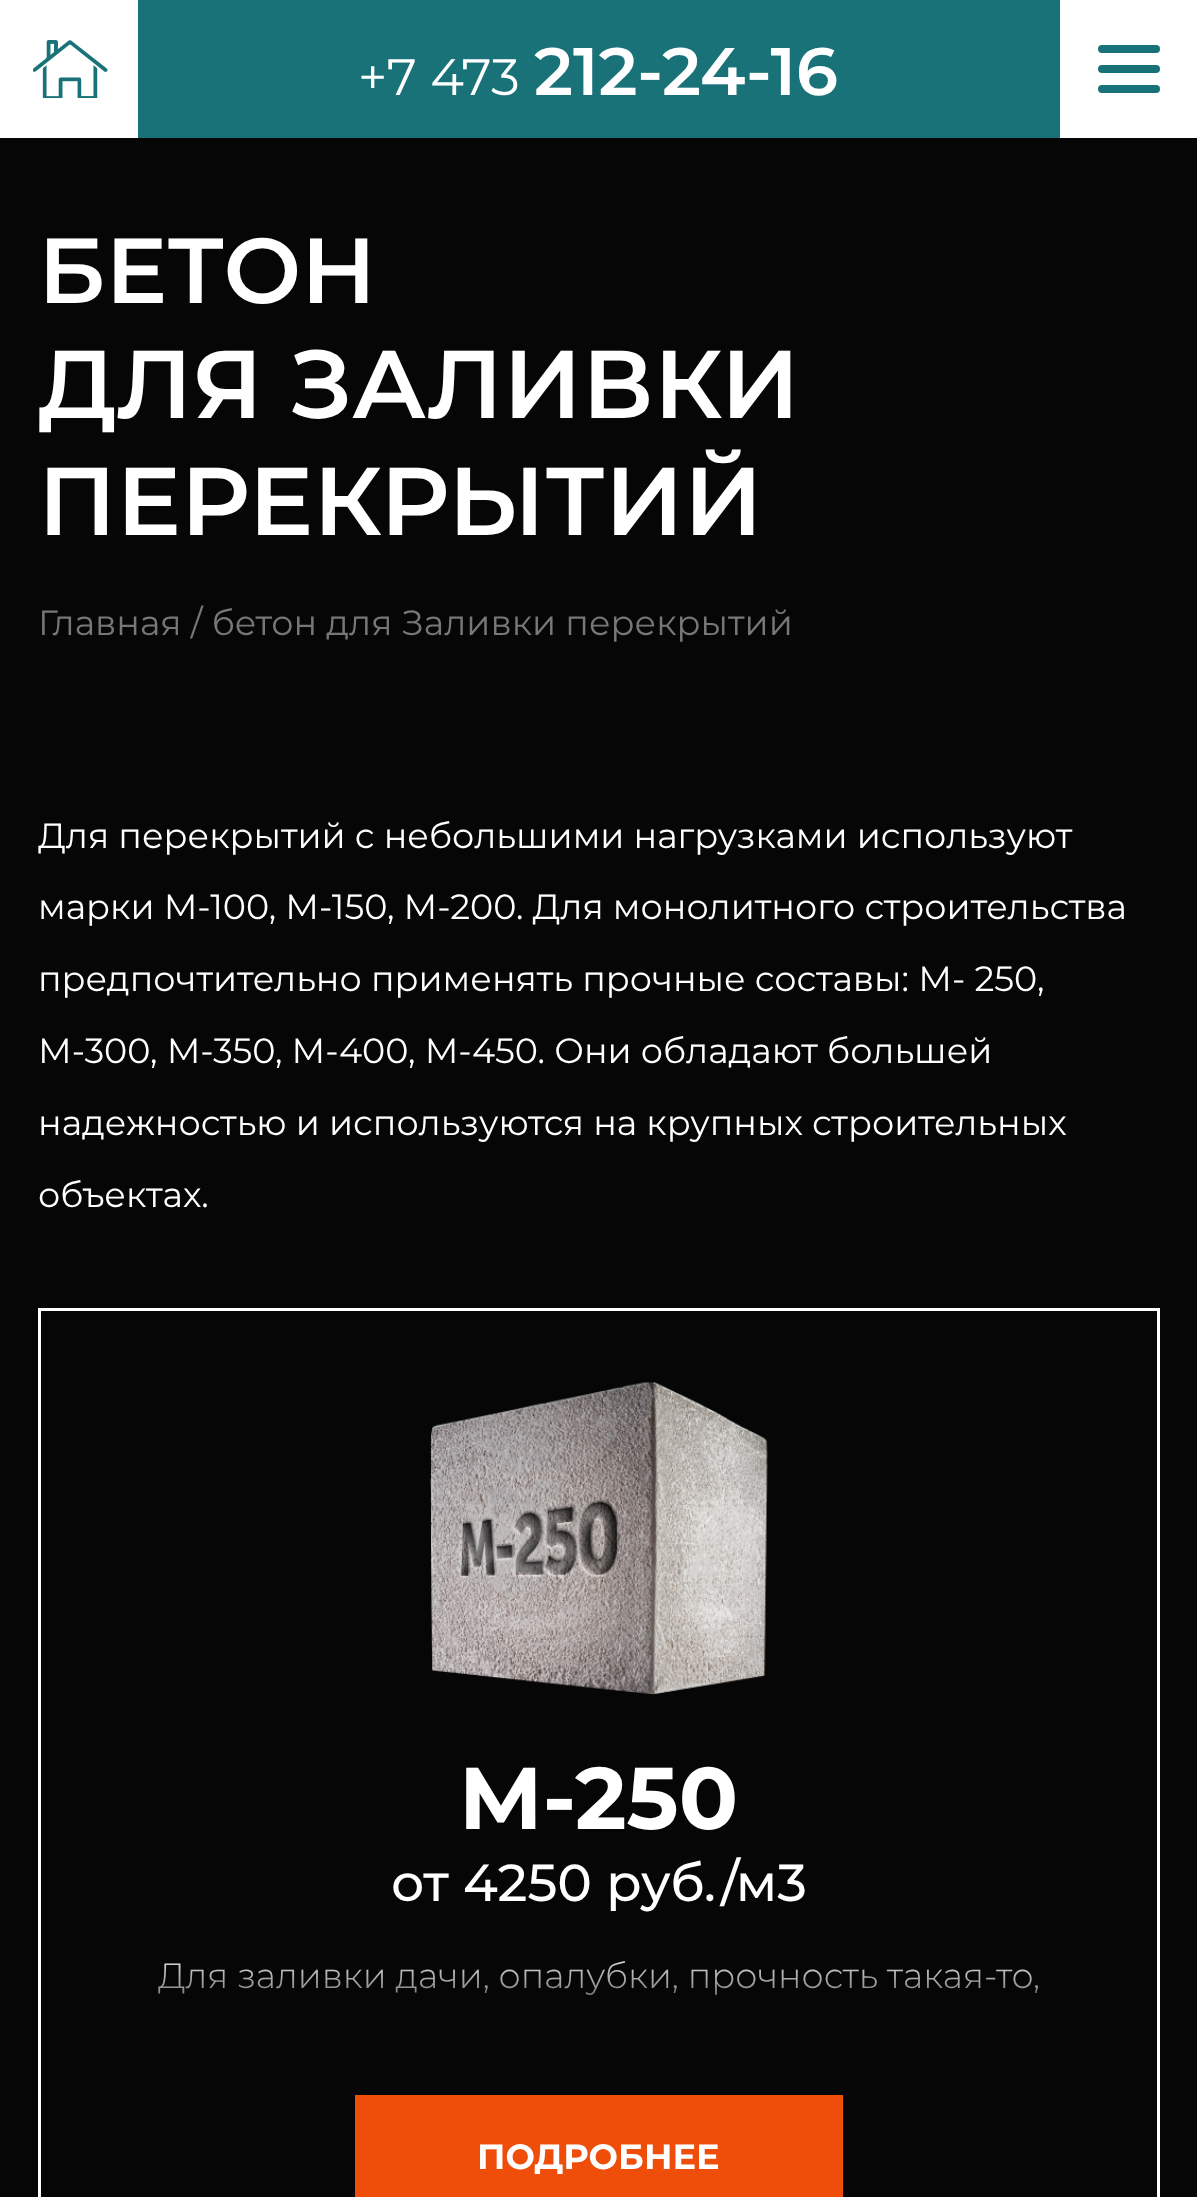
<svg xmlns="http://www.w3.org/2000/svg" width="1197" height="2197">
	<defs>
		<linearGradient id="g1" gradientUnits="userSpaceOnUse" x1="599" y1="2075" x2="599" y2="1945"><stop offset="0.25" stop-color="#060606" /><stop offset="1" stop-color="#060606" stop-opacity="0" /></linearGradient>
	</defs>
	<rect width="100%" height="100%" fill="#060606" />
	<rect x="138" y="0" width="922" height="138" fill="#197278" />
	<rect x="0" y="0" width="138" height="138" fill="#FFFFFF" />
	<image x="33" y="40" width="75" height="58" href="assets/img1.png" />
	<text x="358" y="95" font-family="Montserrat" font-size="51" fill="#FFFFFF">+7 473</text>
	<text x="534" y="95" font-family="Montserrat" font-size="67" font-weight="600" fill="#FFFFFF">212-24-16</text>
	<rect x="1060" y="0" width="137" height="138" fill="#FFFFFF" />
	<rect x="1098" y="45" width="62" height="8" rx="4" fill="#197278" />
	<rect x="1098" y="65" width="62" height="8" rx="4" fill="#197278" />
	<rect x="1098" y="85" width="62" height="8" rx="4" fill="#197278" />
	<text x="38" y="303" font-family="Montserrat" font-size="92" font-weight="600" fill="#FFFFFF">БЕТОН</text>
	<g font-family="Montserrat" font-size="96" font-weight="600" fill="#FFFFFF">
		<text x="38" y="418">ДЛЯ ЗАЛИВКИ</text>
		<text x="38" y="535">ПЕРЕКРЫТИЙ</text>
	</g>
	<text x="38" y="635" font-family="Montserrat" font-size="35" fill="#777777">Главная / бетон для Заливки перекрытий</text>
	<g font-family="Montserrat" font-size="35" fill="#FFFFFF">
		<text x="38" y="848">Для перекрытий с небольшими нагрузками используют</text>
		<text x="38" y="919">марки М-100, М-150, М-200. Для монолитного строительства</text>
		<text x="38" y="991">предпочтительно применять прочные составы: М- 250,</text>
		<text x="38" y="1063">М-300, М-350, М-400, М-450. Они обладают большей</text>
		<text x="38" y="1135">надежностью и используются на крупных строительных</text>
		<text x="38" y="1207">объектах.</text>
	</g>
	<rect x="39.5" y="1309.5" width="1119" height="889" fill="none" stroke="#FFFFFF" stroke-width="3" />
	<image x="430" y="1382" width="338" height="313" href="assets/img2.png" />
	<text x="459" y="1829" font-family="Montserrat" font-size="87.5" font-weight="700" fill="#FFFFFF">M-250</text>
	<text x="391" y="1901" font-family="Montserrat" font-size="52" font-weight="500" fill="#FFFFFF">от 4250 руб./м3</text>
	<text x="158" y="1988" font-family="Montserrat" font-size="35" font-weight="300" fill="#FFFFFF">Для заливки дачи, опалубки, прочность такая-то,</text>
	<rect x="158" y="1961" width="880" height="34" fill="url(#g1)" />
	<rect x="355" y="2095" width="488" height="102" fill="#EE4D0A" />
	<text x="477" y="2169" font-family="Montserrat" font-size="35" font-weight="700" fill="#FFFFFF">ПОДРОБНЕЕ</text>
</svg>
